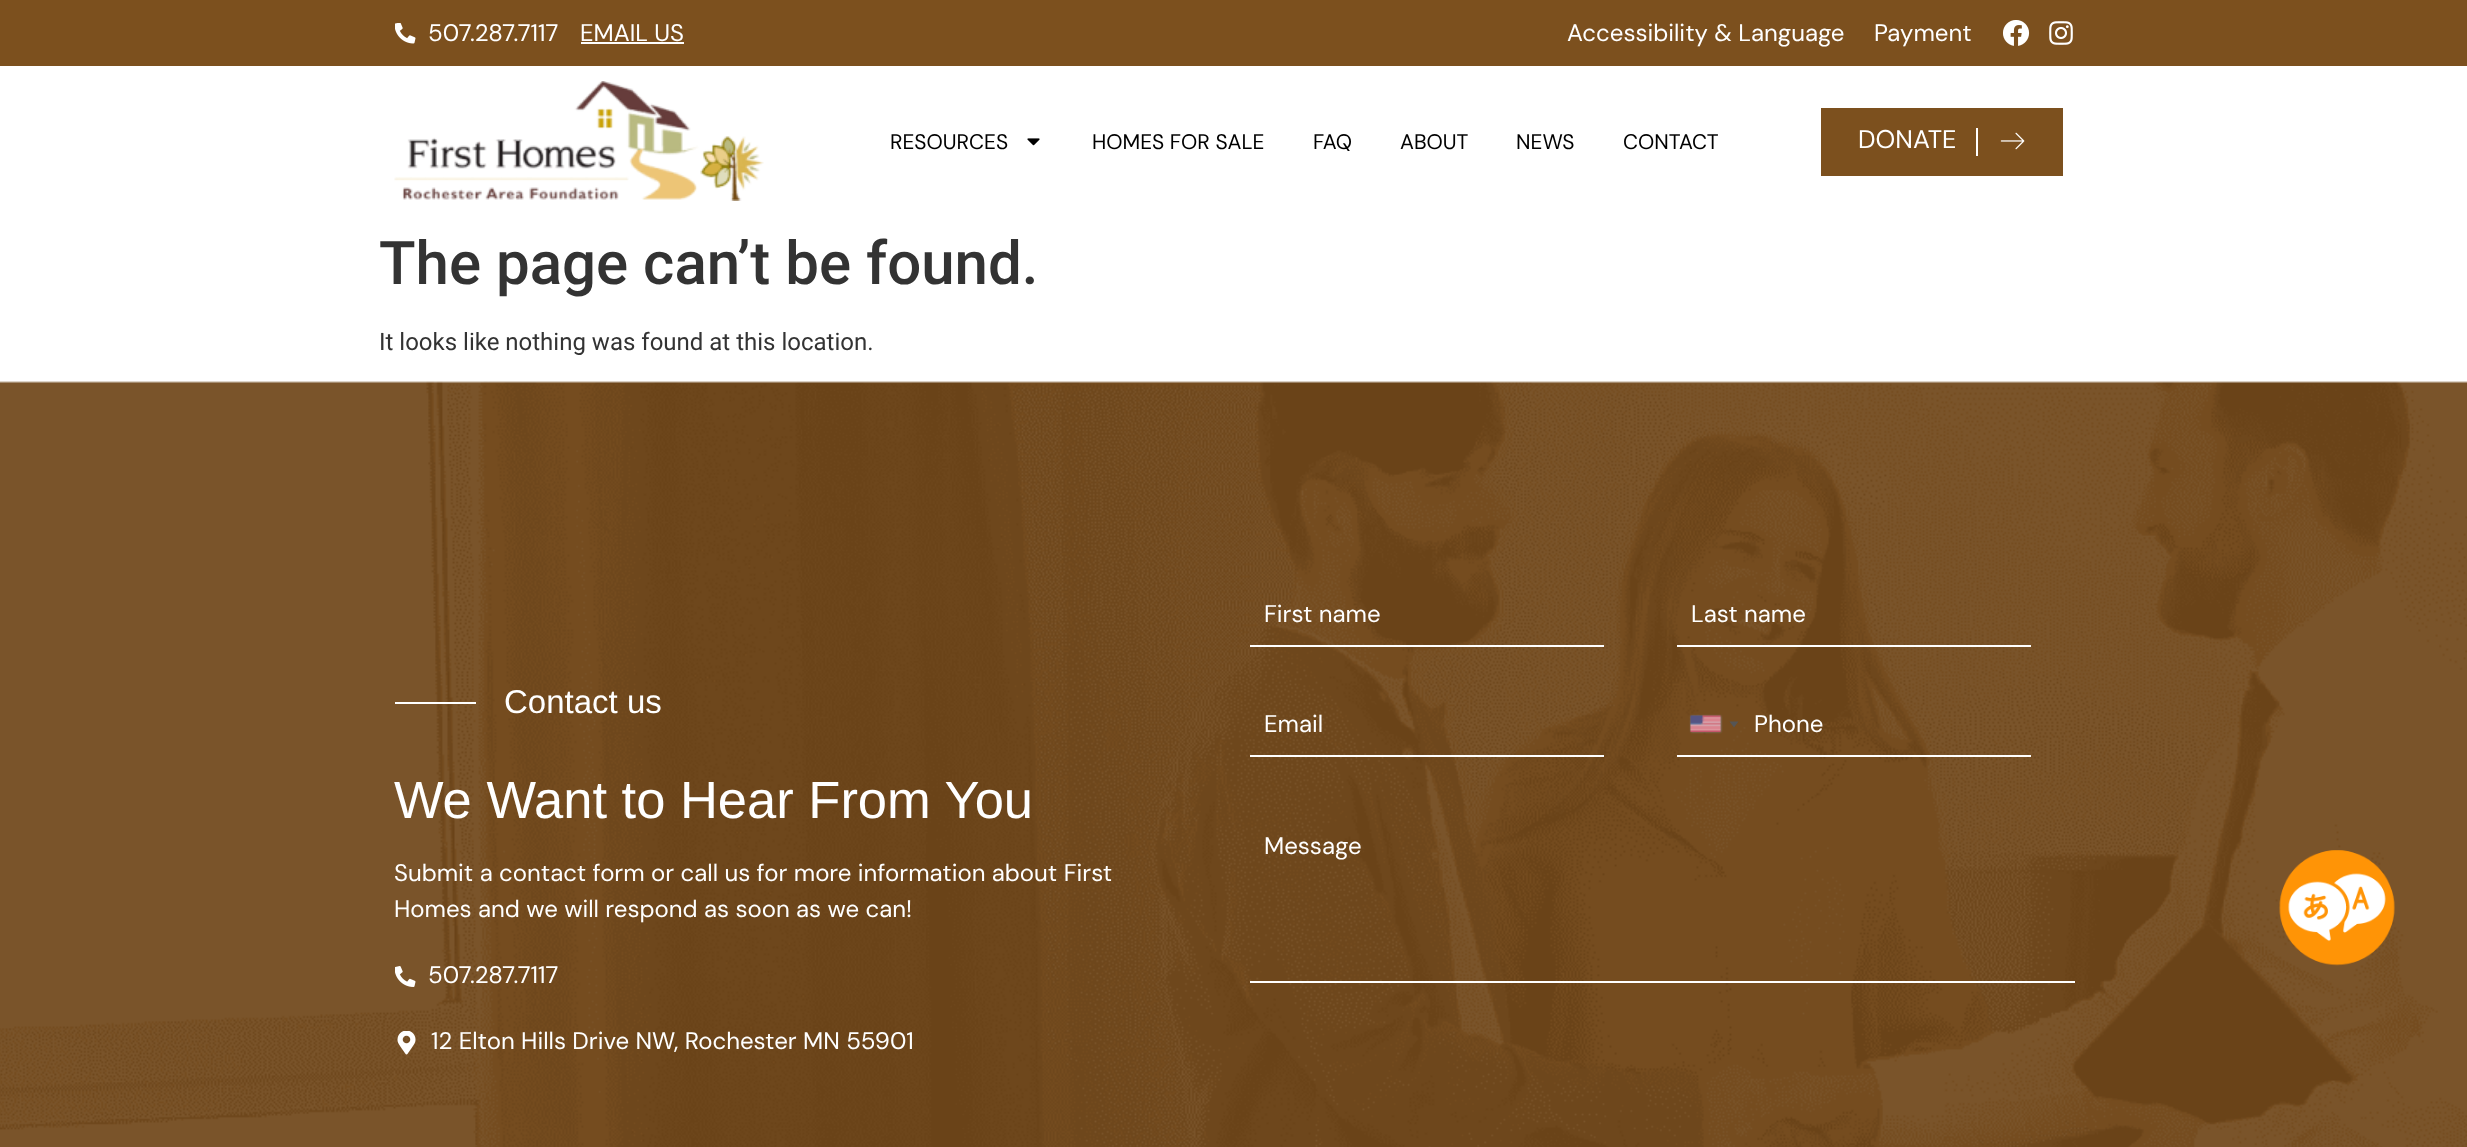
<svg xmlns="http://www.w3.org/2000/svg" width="2467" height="1147">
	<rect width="100%" height="100%" fill="#FFFFFF" />
	<rect x="0" y="0" width="2467" height="66" fill="#7C501E" />
	<image x="395" y="23" width="21" height="21" href="assets/img1.png" />
	<g font-family="DM Sans" font-size="24" fill="#FFFFFF">
		<text x="428" y="41">507.287.7117</text>
		<text x="580" y="41">EMAIL US</text>
	</g>
	<rect x="581" y="42" width="103" height="2" fill="#FFFFFF" />
	<g font-family="DM Sans" font-size="24" fill="#FFFFFF">
		<text x="1567" y="41">Accessibility &amp; Language</text>
		<text x="1874" y="41">Payment</text>
	</g>
	<image x="2003" y="20" width="27" height="26" href="assets/img2.png" />
	<image x="2049" y="21" width="24" height="24" href="assets/img3.png" />
	<image x="394" y="81" width="370" height="120" href="assets/img4.png" />
	<text x="890" y="149" font-family="DM Sans" font-size="21" fill="#000000">RESOURCES</text>
	<image x="1027" y="138" width="13" height="8" href="assets/img5.png" />
	<g font-family="DM Sans" font-size="21" fill="#000000">
		<text x="1092" y="149">HOMES FOR SALE</text>
		<text x="1313" y="149">FAQ</text>
		<text x="1400" y="149">ABOUT</text>
		<text x="1516" y="149">NEWS</text>
		<text x="1623" y="149">CONTACT</text>
	</g>
	<rect x="1821" y="108" width="242" height="68" fill="#7C501E" />
	<rect x="1976" y="128" width="2" height="28" fill="#FFFFFF" />
	<text x="1858" y="148" font-family="DM Sans" font-size="25.5" fill="#FFFFFF">DONATE</text>
	<image x="2000" y="132" width="25" height="18" href="assets/img6.png" />
	<text x="379" y="284" font-family="Roboto" font-size="60" font-weight="500" fill="#333333">The page can’t be found.</text>
	<text x="379" y="350" font-family="Roboto" font-size="24" fill="#333333">It looks like nothing was found at this location.</text>
	<image x="0" y="381" width="2467" height="766" href="assets/img7.png" />
	<rect x="395" y="702" width="81" height="2" fill="#FFFFFF" />
	<text x="504" y="713" font-family="Liberation Sans" font-size="33" fill="#FFFFFF">Contact us</text>
	<text x="394" y="818" font-family="Liberation Sans" font-size="52.5" fill="#FFFFFF">We Want to Hear From You</text>
	<g font-family="DM Sans" font-size="24" fill="#FFFFFF">
		<text x="394" y="881">Submit a contact form or call us for more information about First</text>
		<text x="394" y="917">Homes and we will respond as soon as we can!</text>
	</g>
	<image x="395" y="966" width="21" height="21" href="assets/img8.png" />
	<text x="428" y="983" font-family="DM Sans" font-size="24" fill="#FFFFFF">507.287.7117</text>
	<image x="397" y="1031" width="19" height="24" href="assets/img9.png" />
	<text x="431" y="1049" font-family="DM Sans" font-size="24" fill="#FFFFFF">12 Elton Hills Drive NW, Rochester MN 55901</text>
	<rect x="1250" y="645" width="354" height="2" fill="#FFFFFF" />
	<text x="1264" y="622" font-family="DM Sans" font-size="24" fill="#FFFFFF">First name</text>
	<rect x="1677" y="645" width="354" height="2" fill="#FFFFFF" />
	<text x="1691" y="622" font-family="DM Sans" font-size="24" fill="#FFFFFF">Last name</text>
	<rect x="1250" y="755" width="354" height="2" fill="#FFFFFF" />
	<text x="1264" y="732" font-family="DM Sans" font-size="24" fill="#FFFFFF">Email</text>
	<rect x="1691" y="716" width="30" height="16" fill="#888888" filter="blur(1px)" />
	<image x="1690" y="715" width="31" height="17" href="assets/img10.png" />
	<path d="M1729.5 721.5H1738.5L1734 727.5Z" fill="#555555" />
	<rect x="1677" y="755" width="354" height="2" fill="#FFFFFF" />
	<text x="1754" y="732" font-family="DM Sans" font-size="24" fill="#FFFFFF">Phone</text>
	<rect x="1250" y="981" width="825" height="2" fill="#FFFFFF" />
	<text x="1264" y="854" font-family="DM Sans" font-size="24" fill="#FFFFFF">Message</text>
	<image x="2279" y="850" width="116" height="116" href="assets/img11.png" />
</svg>
